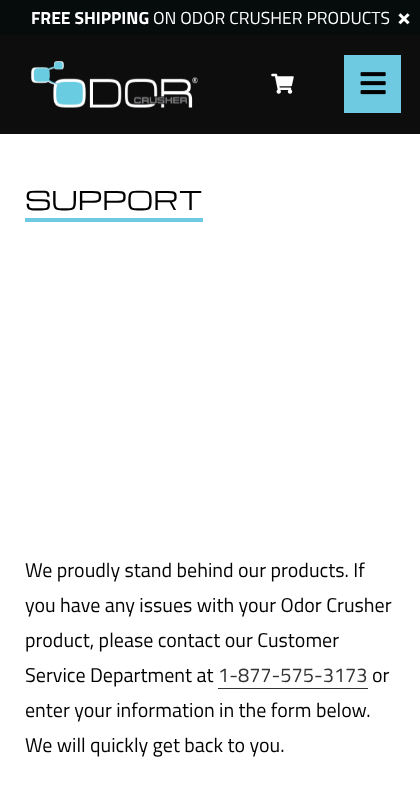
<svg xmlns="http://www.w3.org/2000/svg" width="420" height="790">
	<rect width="100%" height="100%" fill="#FFFFFF" />
	<rect x="0" y="0" width="420" height="35" fill="#060C0C" />
	<text x="31" y="24" font-family="Titillium Web" font-size="17.5" font-weight="700" fill="#FFFFFF">FREE SHIPPING</text>
	<text x="153" y="24" font-family="Titillium Web" font-size="17.5" fill="#FFFFFF">ON ODOR CRUSHER PRODUCTS</text>
	<text x="397" y="25" font-family="Titillium Web" font-size="25" font-weight="700" fill="#FFFFFF">×</text>
	<rect x="0" y="35" width="420" height="99" fill="#0D0D0D" />
	<image x="31" y="61" width="167" height="47" href="assets/img1.png" />
	<image x="271" y="73" width="23" height="21" href="assets/img2.png" />
	<rect x="344" y="55" width="57" height="58" fill="#6ECAE1" />
	<image x="360" y="72" width="26" height="23" href="assets/img3.png" />
	<rect x="25" y="218" width="178" height="4" fill="#6ECAE1" />
	<text x="25" y="210" font-family="Michroma" font-size="25.25" fill="#000000">SUPPORT</text>
	<g font-family="Titillium Web" font-size="20" fill="#000000">
		<text x="25" y="577">We proudly stand behind our products. If</text>
		<text x="25" y="612">you have any issues with your Odor Crusher</text>
		<text x="25" y="647">product, please contact our Customer</text>
		<text x="25" y="682">Service Department at</text>
	</g>
	<text x="218" y="682" font-family="Titillium Web" font-size="20" fill="#333333">1-877-575-3173</text>
	<rect x="218" y="688" width="150" height="1" fill="#333333" />
	<g font-family="Titillium Web" font-size="20" fill="#000000">
		<text x="372" y="682">or</text>
		<text x="25" y="717">enter your information in the form below.</text>
		<text x="25" y="752">We will quickly get back to you.</text>
	</g>
</svg>
